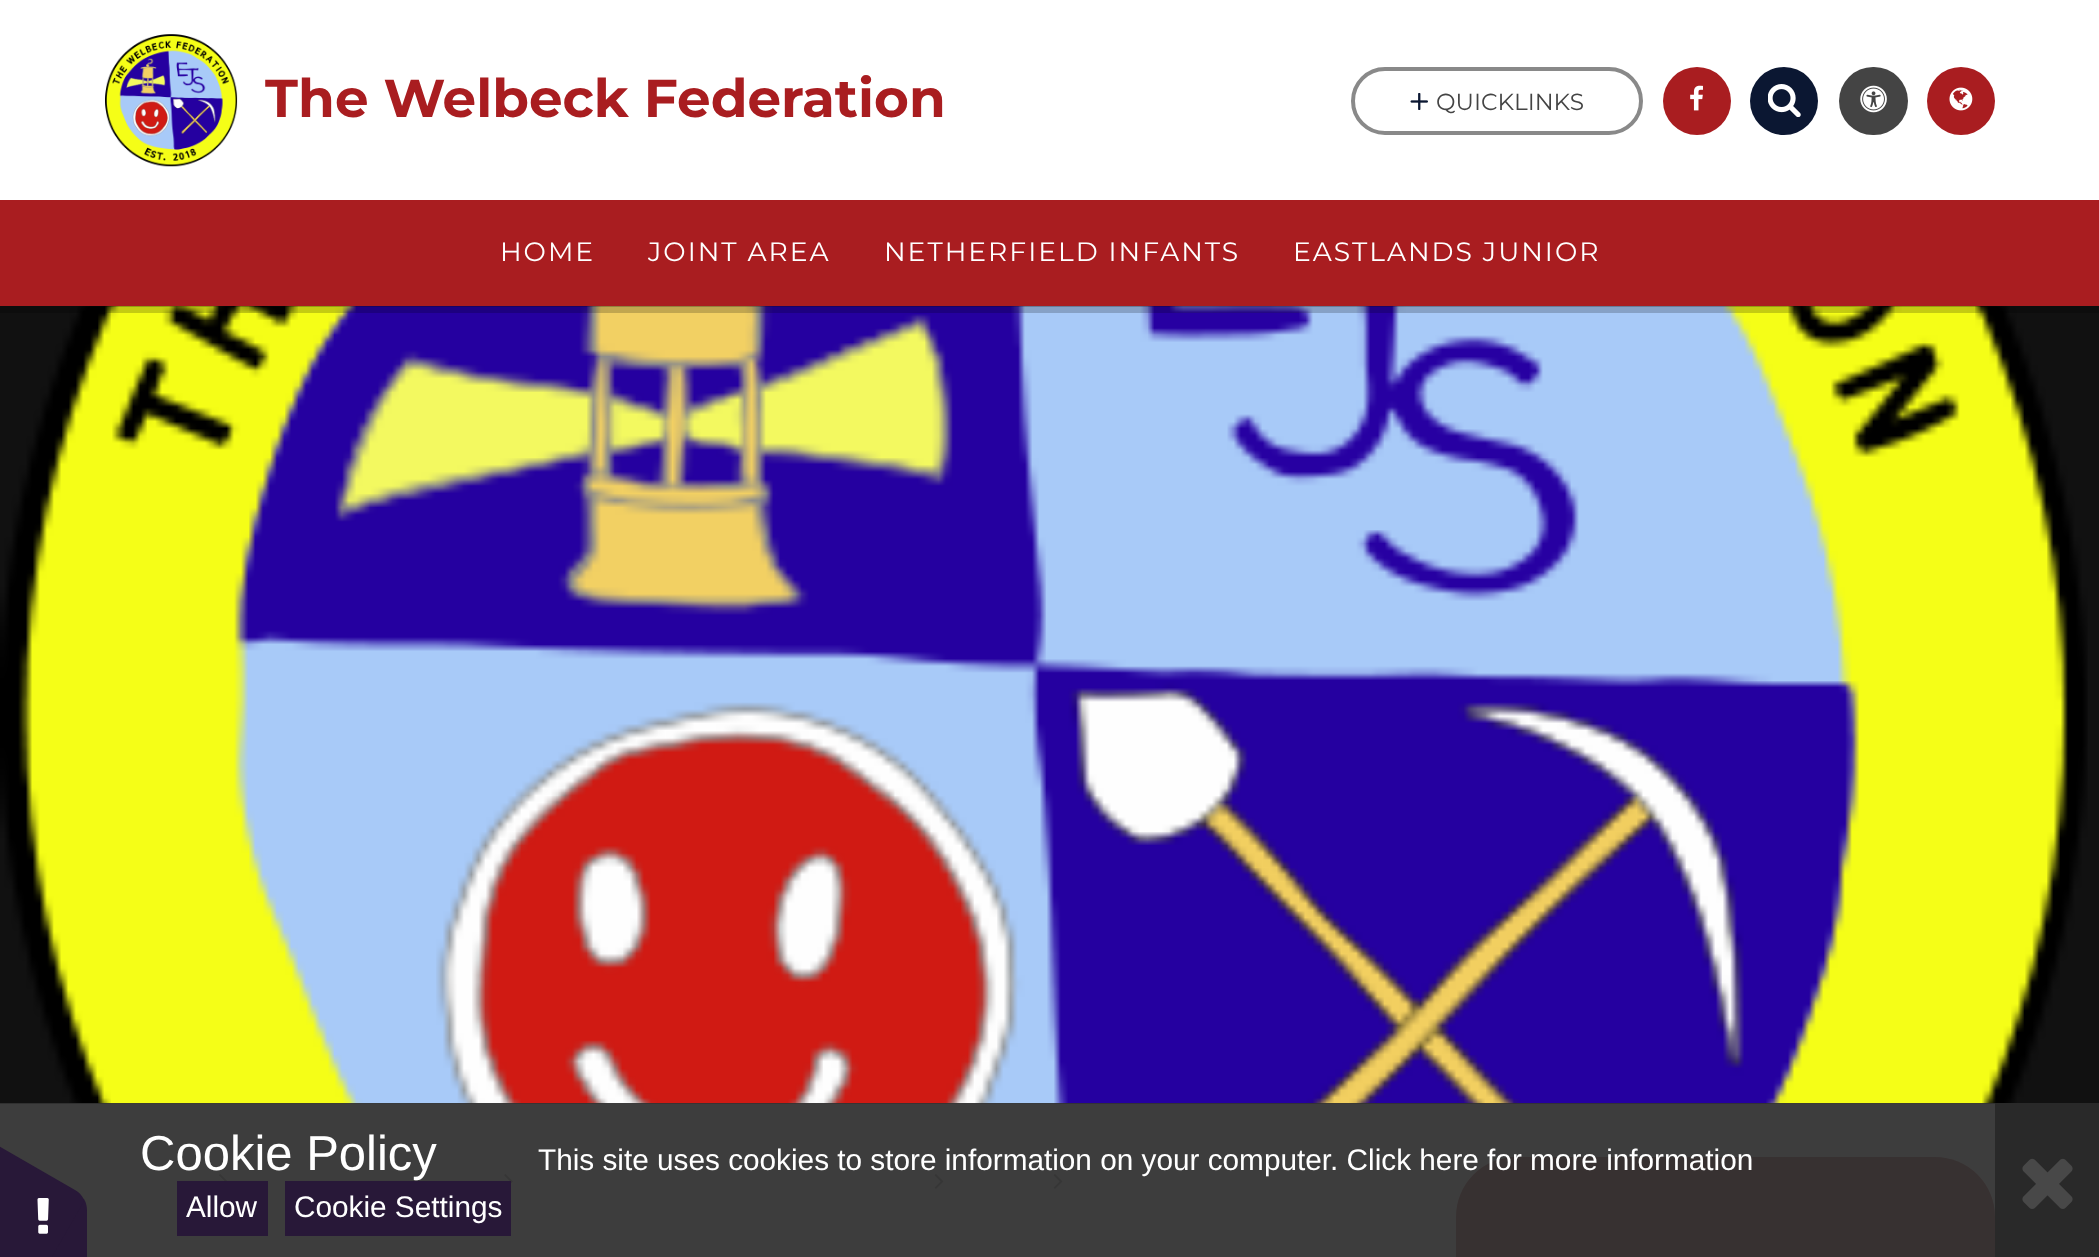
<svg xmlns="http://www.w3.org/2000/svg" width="2099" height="1257">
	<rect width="100%" height="100%" fill="#111111" />
	<rect x="0" y="0" width="2099" height="200" fill="#FFFFFF" />
	<image x="105" y="34" width="133" height="133" href="assets/img1.png" />
	<text x="265" y="117" font-family="Montserrat" font-size="53.25" font-weight="700" fill="#A91D20">The Welbeck Federation</text>
	<image x="0" y="306" width="2088" height="798" href="assets/img7.png" />
	<rect x="0" y="306" width="2099" height="7" fill="#000000" fill-opacity="0.2" />
	<rect x="0" y="200" width="2099" height="106" fill="#A91D20" />
	<rect x="1353" y="69" width="288" height="64" rx="32" fill="none" stroke="#898989" stroke-width="4" />
	<image x="1410" y="93" width="18" height="17" href="assets/img2.png" />
	<text x="1436" y="110" font-family="Montserrat" font-size="23.25" fill="#444444">QUICKLINKS</text>
	<circle cx="1697" cy="101" r="34" fill="#A91D20" />
	<image x="1690" y="85" width="13" height="26" href="assets/img3.png" />
	<circle cx="1784" cy="101" r="34" fill="#0B1732" />
	<image x="1768" y="84" width="33" height="33" href="assets/img4.png" />
	<rect x="1839" y="67" width="69" height="68" rx="34" fill="#444444" />
	<image x="1860" y="85" width="27" height="28" href="assets/img5.png" />
	<circle cx="1961" cy="101" r="34" fill="#A91D20" />
	<image x="1949" y="87" width="24" height="24" href="assets/img6.png" />
	<g font-family="Montserrat" font-size="26.6" letter-spacing="2" fill="#FFFFFF">
		<text x="500" y="261">HOME</text>
		<text x="648" y="261">JOINT AREA</text>
		<text x="884" y="261">NETHERFIELD INFANTS</text>
		<text x="1293" y="261">EASTLANDS JUNIOR</text>
	</g>
	<rect x="0" y="1104" width="1995" height="153" fill="#FFFFFF" />
	<image x="219" y="1174" width="9" height="7" href="assets/img8.png" />
	<image x="504" y="1174" width="9" height="10" href="assets/img9.png" />
	<image x="934" y="1174" width="10" height="15" href="assets/img10.png" />
	<image x="1053" y="1174" width="10" height="15" href="assets/img10.png" />
	<rect x="1456" y="1157" width="539" height="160" rx="60" fill="#A91D20" />
	<path d="M1516 1157H1935C1968 1157 1995 1184 1995 1217V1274H1456V1217C1456 1184 1483 1157 1516 1157Z" fill="#000000" fill-opacity="0.15" />
	<rect x="0" y="1103" width="1995" height="154" fill="#333333" fill-opacity="0.95" />
	<path d="M87 1211V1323C87 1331 84 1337 80 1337H-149C-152 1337-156 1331-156 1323V1211C-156 1203-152 1197-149 1197H80C84 1197 87 1203 87 1211Z" fill="#281838" />
	<path d="M-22 1134L75 1190C82 1194 85 1200 83 1203L-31 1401C-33 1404-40 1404-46 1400L-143 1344C-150 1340-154 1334-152 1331L-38 1133C-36 1130-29 1130-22 1134Z" fill="#281838" />
	<image x="37" y="1198" width="12" height="36" href="assets/img11.png" />
	<text x="140" y="1170" font-family="Liberation Sans" font-size="49" fill="#FFFFFF">Cookie Policy</text>
	<text x="538" y="1170" font-family="Liberation Sans" font-size="29.75" fill="#FFFFFF">This site uses cookies to store information on your computer. Click here for more information</text>
	<rect x="177" y="1181" width="91" height="55" fill="#281838" />
	<text x="186" y="1217" font-family="Liberation Sans" font-size="29.75" fill="#FFFFFF">Allow</text>
	<rect x="285" y="1181" width="226" height="55" fill="#281838" />
	<text x="294" y="1217" font-family="Liberation Sans" font-size="29.75" fill="#FFFFFF">Cookie Settings</text>
	<rect x="1995" y="1103" width="104" height="154" fill="#292929" />
	<image x="2022" y="1158" width="51" height="51" href="assets/img12.png" />
</svg>
